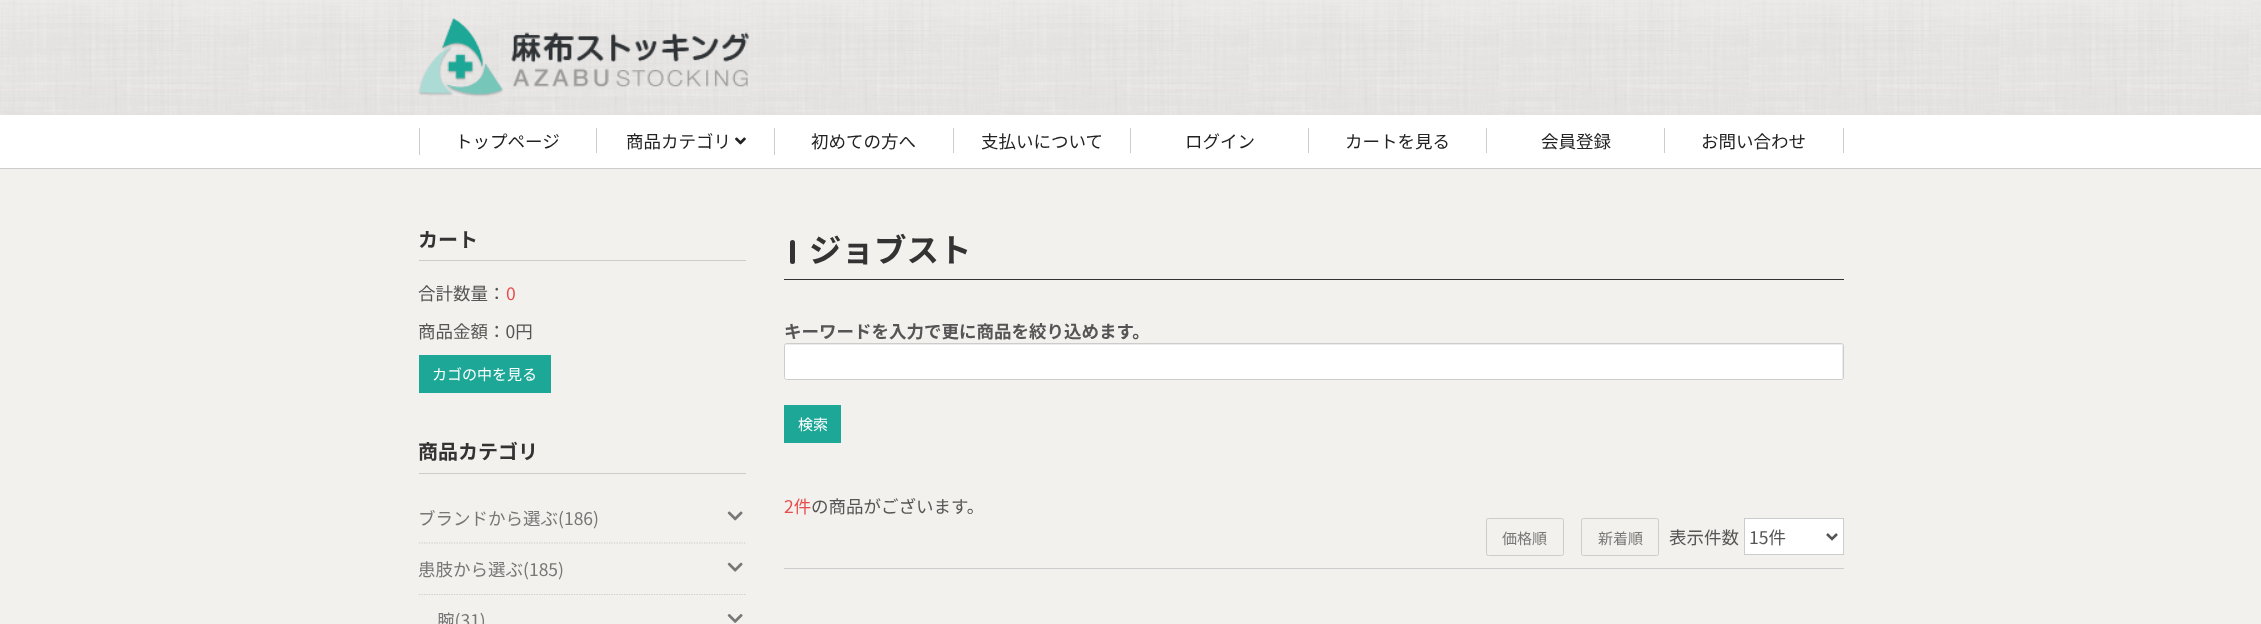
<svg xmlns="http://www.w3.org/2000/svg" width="2261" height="624">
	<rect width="100%" height="100%" fill="#F3F1ED" />
	<image x="0" y="0" width="2261" height="115" href="assets/img1.png" />
	<image x="418" y="18" width="331" height="79" href="assets/img2.png" />
	<rect x="0" y="115" width="2261" height="53" fill="#FFFFFF" />
	<rect x="0" y="168" width="2261" height="1" fill="#CCCCCC" />
	<rect x="419" y="128" width="1" height="27" fill="#CCCCCC" />
	<rect x="596" y="128" width="1" height="25" fill="#CCCCCC" />
	<text x="455" y="148" font-family="Noto Sans JP" font-size="17.5" fill="#222222">トップページ</text>
	<rect x="774" y="128" width="1" height="27" fill="#CCCCCC" />
	<text x="626" y="148" font-family="Noto Sans JP" font-size="17.5" fill="#222222">商品カテゴリ</text>
	<image x="735" y="137" width="11" height="8" href="assets/img3.png" />
	<rect x="953" y="128" width="1" height="25" fill="#CCCCCC" />
	<text x="811" y="148" font-family="Noto Sans JP" font-size="17.5" fill="#222222">初めての方へ</text>
	<rect x="1130" y="128" width="1" height="25" fill="#CCCCCC" />
	<text x="981" y="148" font-family="Noto Sans JP" font-size="17.5" fill="#222222">支払いについて</text>
	<rect x="1308" y="128" width="1" height="25" fill="#CCCCCC" />
	<text x="1185" y="148" font-family="Noto Sans JP" font-size="17.5" fill="#222222">ログイン</text>
	<rect x="1486" y="128" width="1" height="25" fill="#CCCCCC" />
	<text x="1345" y="148" font-family="Noto Sans JP" font-size="17.5" fill="#222222">カートを見る</text>
	<rect x="1664" y="128" width="1" height="25" fill="#CCCCCC" />
	<text x="1541" y="148" font-family="Noto Sans JP" font-size="17.5" fill="#222222">会員登録</text>
	<rect x="1843" y="128" width="1" height="25" fill="#CCCCCC" />
	<text x="1701" y="148" font-family="Noto Sans JP" font-size="17.5" fill="#222222">お問い合わせ</text>
	<rect x="419" y="260" width="327" height="1" fill="#CCCCCC" />
	<text x="418" y="247" font-family="Noto Sans JP" font-size="20" font-weight="700" fill="#333333">カート</text>
	<text x="418" y="300" font-family="Noto Sans JP" font-size="17.5" fill="#555555">合計数量：</text>
	<text x="506" y="300" font-family="Noto Sans JP" font-size="17.5" fill="#E64E4E">0</text>
	<text x="418" y="338" font-family="Noto Sans JP" font-size="17.5" fill="#555555">商品金額：0円</text>
	<rect x="419" y="355" width="132" height="38" fill="#1CA796" />
	<text x="432" y="380" font-family="Noto Sans JP" font-size="15" fill="#FFFFFF">カゴの中を見る</text>
	<rect x="419" y="473" width="327" height="1" fill="#CCCCCC" />
	<text x="418" y="459" font-family="Noto Sans JP" font-size="20" font-weight="700" fill="#333333">商品カテゴリ</text>
	<path d="M419 543H746" fill="none" stroke="#CCCCCC" stroke-width="1.2" stroke-dasharray="1.25 1.25" />
	<text x="418" y="525" font-family="Noto Sans JP" font-size="17.5" fill="#777777">ブランドから選ぶ(186)</text>
	<image x="727" y="511" width="16" height="10" href="assets/img4.png" />
	<path d="M419 594.5H746" fill="none" stroke="#CCCCCC" stroke-width="1.2" stroke-dasharray="1.25 1.25" />
	<text x="418" y="576" font-family="Noto Sans JP" font-size="17.5" fill="#777777">患肢から選ぶ(185)</text>
	<image x="727" y="562" width="16" height="10" href="assets/img5.png" />
	<text x="437" y="627" font-family="Noto Sans JP" font-size="17.5" fill="#777777">腕(31)</text>
	<image x="727" y="614" width="16" height="9" href="assets/img6.png" />
	<rect x="784" y="279" width="1060" height="1" fill="#333333" />
	<rect x="790" y="240" width="5" height="24" rx="2.5" fill="#333333" />
	<text x="809" y="262" font-family="Noto Sans JP" font-size="32.5" font-weight="700" fill="#333333">ジョブスト</text>
	<text x="784" y="338" font-family="Noto Sans JP" font-size="17.5" font-weight="700" fill="#555555">キーワードを入力で更に商品を絞り込めます。</text>
	<rect x="784" y="343" width="1060" height="37" rx="2.5" fill="#FFFFFF" />
	<path d="M786 345H1841C1842 345 1842 346 1842 346V379C1844 379 1843 375 1843 372C1843 352 1844 344 1842 344H786C785 344 785 345 785 346Z" fill="#ECECEC" />
	<rect x="784.5" y="343.5" width="1059" height="36" rx="2" fill="none" stroke="#CCCCCC" />
	<rect x="784" y="405" width="57" height="38" fill="#1CA796" />
	<text x="798" y="430" font-family="Noto Sans JP" font-size="15" fill="#FFFFFF">検索</text>
	<text x="784" y="513" font-family="Noto Sans JP" font-size="17.5" fill="#E64E4E">2件</text>
	<text x="811" y="513" font-family="Noto Sans JP" font-size="17.5" fill="#555555">の商品がございます。</text>
	<rect x="784" y="568" width="1060" height="1" fill="#CCCCCC" />
	<rect x="1486.5" y="518.5" width="77" height="37" rx="2" fill="none" stroke="#CCCCCC" />
	<text x="1502" y="544" font-family="Noto Sans JP" font-size="15" fill="#777777">価格順</text>
	<rect x="1581.5" y="518.5" width="77" height="37" rx="2" fill="none" stroke="#CCCCCC" />
	<text x="1598" y="544" font-family="Noto Sans JP" font-size="15" fill="#777777">新着順</text>
	<text x="1669" y="544" font-family="Noto Sans JP" font-size="17.5" fill="#555555">表示件数</text>
	<rect x="1744.5" y="518.5" width="99" height="36" fill="#FFFFFF" stroke="#CCCCCC" />
	<path d="M1827 534L1832 539L1837 534" fill="none" stroke="#555555" stroke-width="2.5" />
	<text x="1749" y="544" font-family="Noto Sans JP" font-size="17.5" fill="#555555">15件</text>
</svg>
